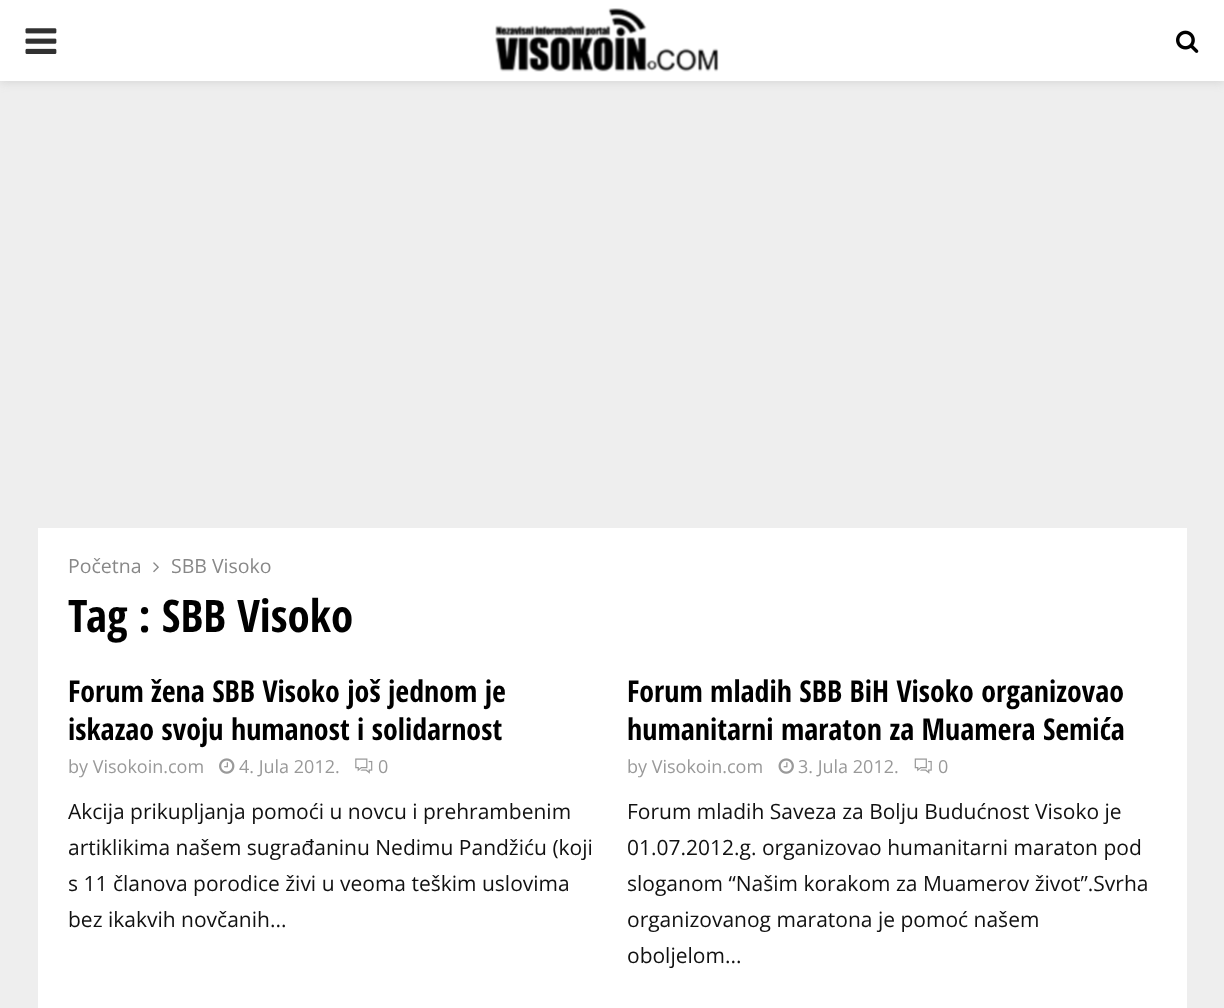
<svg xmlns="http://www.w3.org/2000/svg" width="1224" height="1008">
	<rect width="100%" height="100%" fill="#EEEEEE" />
	<rect x="0" y="2" width="1224" height="81" fill="#BEBEBE" fill-opacity="0.46" filter="blur(4px)" />
	<rect x="0" y="0" width="1224" height="81" fill="#FFFFFF" />
	<image x="25" y="28" width="32" height="26" href="assets/img1.png" />
	<image x="495" y="8" width="224" height="64" href="assets/img2.png" />
	<image x="1176" y="30" width="23" height="23" href="assets/img3.png" />
	<rect x="38" y="528" width="1149" height="480" fill="#FFFFFF" />
	<text x="68" y="573" font-family="Open Sans" font-size="19.5" fill="#888888">Početna</text>
	<image x="153" y="562" width="6" height="11" href="assets/img4.png" />
	<text x="171" y="573" font-family="Open Sans" font-size="19.5" fill="#888888">SBB Visoko</text>
	<text x="68" y="632" font-family="Open Sans Condensed" font-size="45" font-weight="700" fill="#000000">Tag : SBB Visoko</text>
	<g font-family="Open Sans Condensed" font-size="30" font-weight="700" fill="#000000">
		<text x="68" y="702">Forum žena SBB Visoko još jednom je</text>
		<text x="68" y="740">iskazao svoju humanost i solidarnost</text>
	</g>
	<text x="68" y="773" font-family="Open Sans" font-size="18" fill="#999999">by Visokoin.com</text>
	<image x="219" y="758" width="16" height="16" href="assets/img5.png" />
	<text x="239" y="773" font-family="Open Sans" font-size="18" fill="#999999">4. Jula 2012.</text>
	<image x="355" y="758" width="18" height="16" href="assets/img6.png" />
	<text x="378" y="773" font-family="Open Sans" font-size="18" fill="#999999">0</text>
	<g font-family="Open Sans" font-size="21" fill="#111111">
		<text x="68" y="819">Akcija prikupljanja pomoći u novcu i prehrambenim</text>
		<text x="68" y="855">artiklikima našem sugrađaninu Nedimu Pandžiću (koji</text>
		<text x="68" y="891">s 11 članova porodice živi u veoma teškim uslovima</text>
		<text x="68" y="927">bez ikakvih novčanih...</text>
	</g>
	<g font-family="Open Sans Condensed" font-size="30" font-weight="700" fill="#000000">
		<text x="627" y="702">Forum mladih SBB BiH Visoko organizovao</text>
		<text x="627" y="740">humanitarni maraton za Muamera Semića</text>
	</g>
	<text x="627" y="773" font-family="Open Sans" font-size="18" fill="#999999">by Visokoin.com</text>
	<image x="778" y="758" width="16" height="16" href="assets/img7.png" />
	<text x="798" y="773" font-family="Open Sans" font-size="18" fill="#999999">3. Jula 2012.</text>
	<image x="914" y="758" width="18" height="16" href="assets/img8.png" />
	<text x="938" y="773" font-family="Open Sans" font-size="18" fill="#999999">0</text>
	<g font-family="Open Sans" font-size="21" fill="#111111">
		<text x="627" y="819">Forum mladih Saveza za Bolju Budućnost Visoko je</text>
		<text x="627" y="855">01.07.2012.g. organizovao humanitarni maraton pod</text>
		<text x="627" y="891">sloganom “Našim korakom za Muamerov život”.Svrha</text>
		<text x="627" y="927">organizovanog maratona je pomoć našem</text>
		<text x="627" y="963">oboljelom...</text>
	</g>
</svg>
